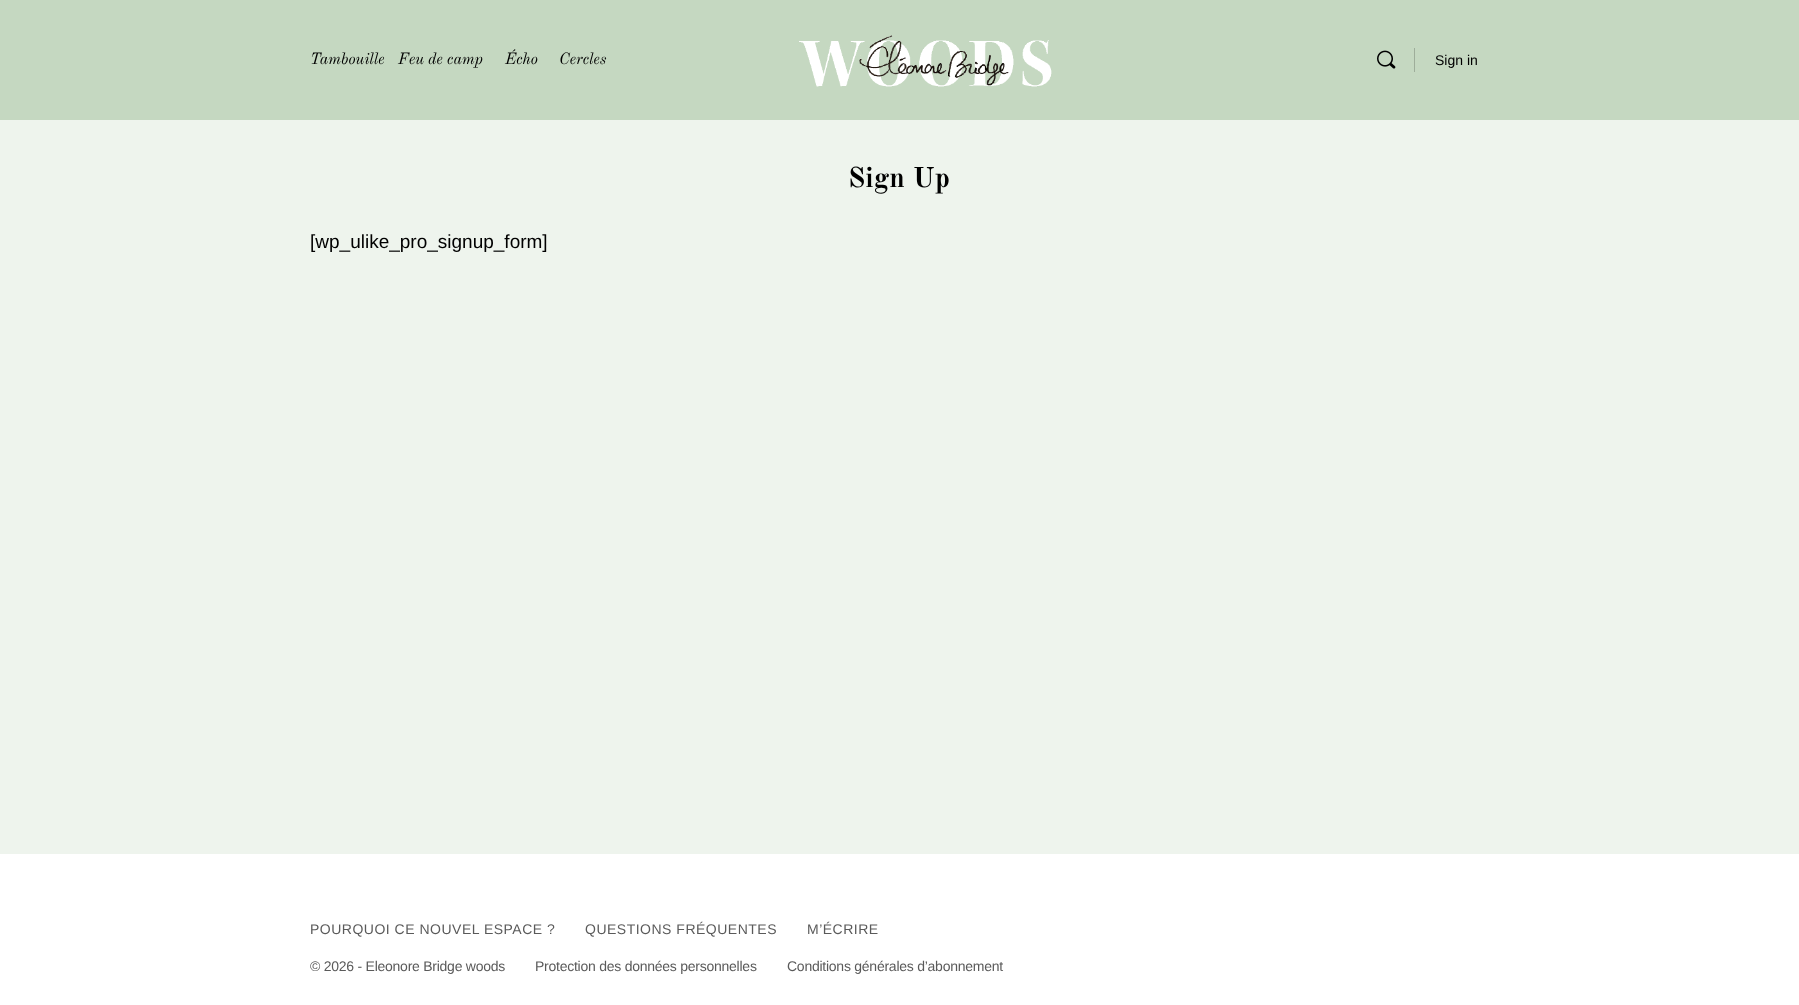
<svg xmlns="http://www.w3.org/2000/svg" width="1799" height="1005">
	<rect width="100%" height="100%" fill="#EEF4ED" />
	<rect x="0" y="0" width="1799" height="120" fill="#C5D8C1" />
	<g font-family="Old Standard TT" font-size="16" font-style="italic" letter-spacing="-0.25" fill="#000000">
		<text x="310" y="64">Tambouille</text>
		<text x="398" y="64">Feu de camp</text>
		<text x="505" y="64">Écho</text>
		<text x="559" y="64">Cercles</text>
	</g>
	<image x="799" y="35" width="253" height="52" href="assets/img1.png" />
	<image x="1377" y="50" width="19" height="19" href="assets/img2.png" />
	<rect x="1414" y="48" width="1" height="24" fill="#9EAD9A" />
	<text x="1435" y="65" font-family="Liberation Sans" font-size="14" fill="#000000">Sign in</text>
	<text x="848" y="187" font-family="Old Standard TT" font-size="28" font-weight="700" fill="#000000">Sign Up</text>
	<text x="310" y="248" font-family="Liberation Sans" font-size="19" fill="#000000">[wp_ulike_pro_signup_form]</text>
	<rect x="0" y="854" width="1799" height="151" fill="#FFFFFF" />
	<g font-family="Liberation Sans" font-size="14" letter-spacing="0.5" fill="#5A5A5A">
		<text x="310" y="934">POURQUOI CE NOUVEL ESPACE ?</text>
		<text x="585" y="934">QUESTIONS FRÉQUENTES</text>
		<text x="807" y="934">M’ÉCRIRE</text>
	</g>
	<g font-family="Liberation Sans" font-size="14" letter-spacing="-0.25" fill="#5A5A5A">
		<text x="310" y="971">© 2026 - Eleonore Bridge woods</text>
		<text x="535" y="971">Protection des données personnelles</text>
		<text x="787" y="971">Conditions générales d’abonnement</text>
	</g>
</svg>
